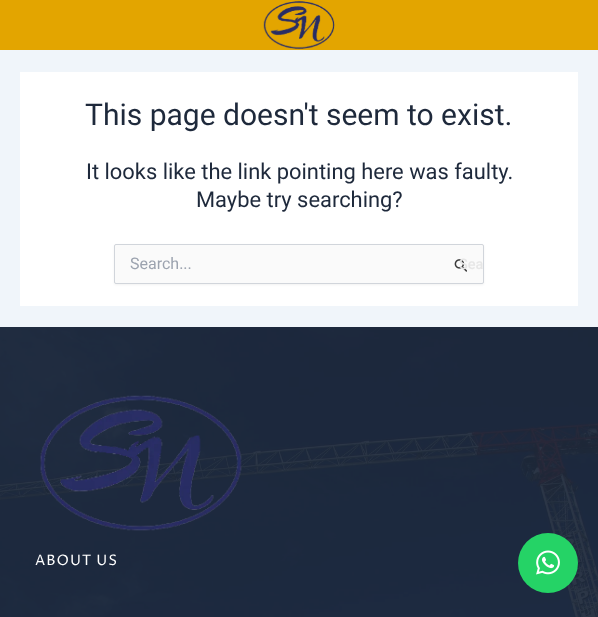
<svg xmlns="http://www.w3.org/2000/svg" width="598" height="617">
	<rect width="100%" height="100%" fill="#F0F5FA" />
	<rect x="0" y="0" width="598" height="50" fill="#E3A500" />
	<image x="263" y="0" width="72" height="50" href="assets/img1.png" />
	<rect x="20" y="72" width="558" height="234" fill="#FFFFFF" />
	<text x="85" y="125" font-family="Roboto" font-size="30" fill="#1E293B">This page doesn't seem to exist.</text>
	<g font-family="Roboto" font-size="21.9" fill="#1E293B">
		<text x="86" y="179">It looks like the link pointing here was faulty.</text>
		<text x="196" y="207">Maybe try searching?</text>
	</g>
	<rect x="114" y="245" width="370" height="40" rx="2" fill="#000000" fill-opacity="0.05" filter="blur(1px)" />
	<rect x="114.5" y="244.5" width="369" height="39" rx="1.5" fill="#FAFAFA" stroke="#D1D5DB" />
	<text x="130" y="269" font-family="Roboto" font-size="16" fill="#9CA3AF">Search...</text>
	<image x="454" y="259" width="13" height="13" href="assets/img2.png" />
	<text x="459" y="269" font-family="Roboto" font-size="14.5" font-weight="500" fill="#E6E6E6">Sea</text>
	<image x="0" y="327" width="598" height="290" href="assets/img3.png" />
	<image x="40" y="395" width="202" height="136" href="assets/img4.png" />
	<text x="35" y="565" font-family="Proza Libre" font-size="14.5" letter-spacing="1" fill="#FFFFFF">ABOUT US</text>
	<circle cx="548" cy="563" r="30" fill="#25D366" />
	<image x="536" y="550" width="24" height="25" href="assets/img5.png" />
</svg>
